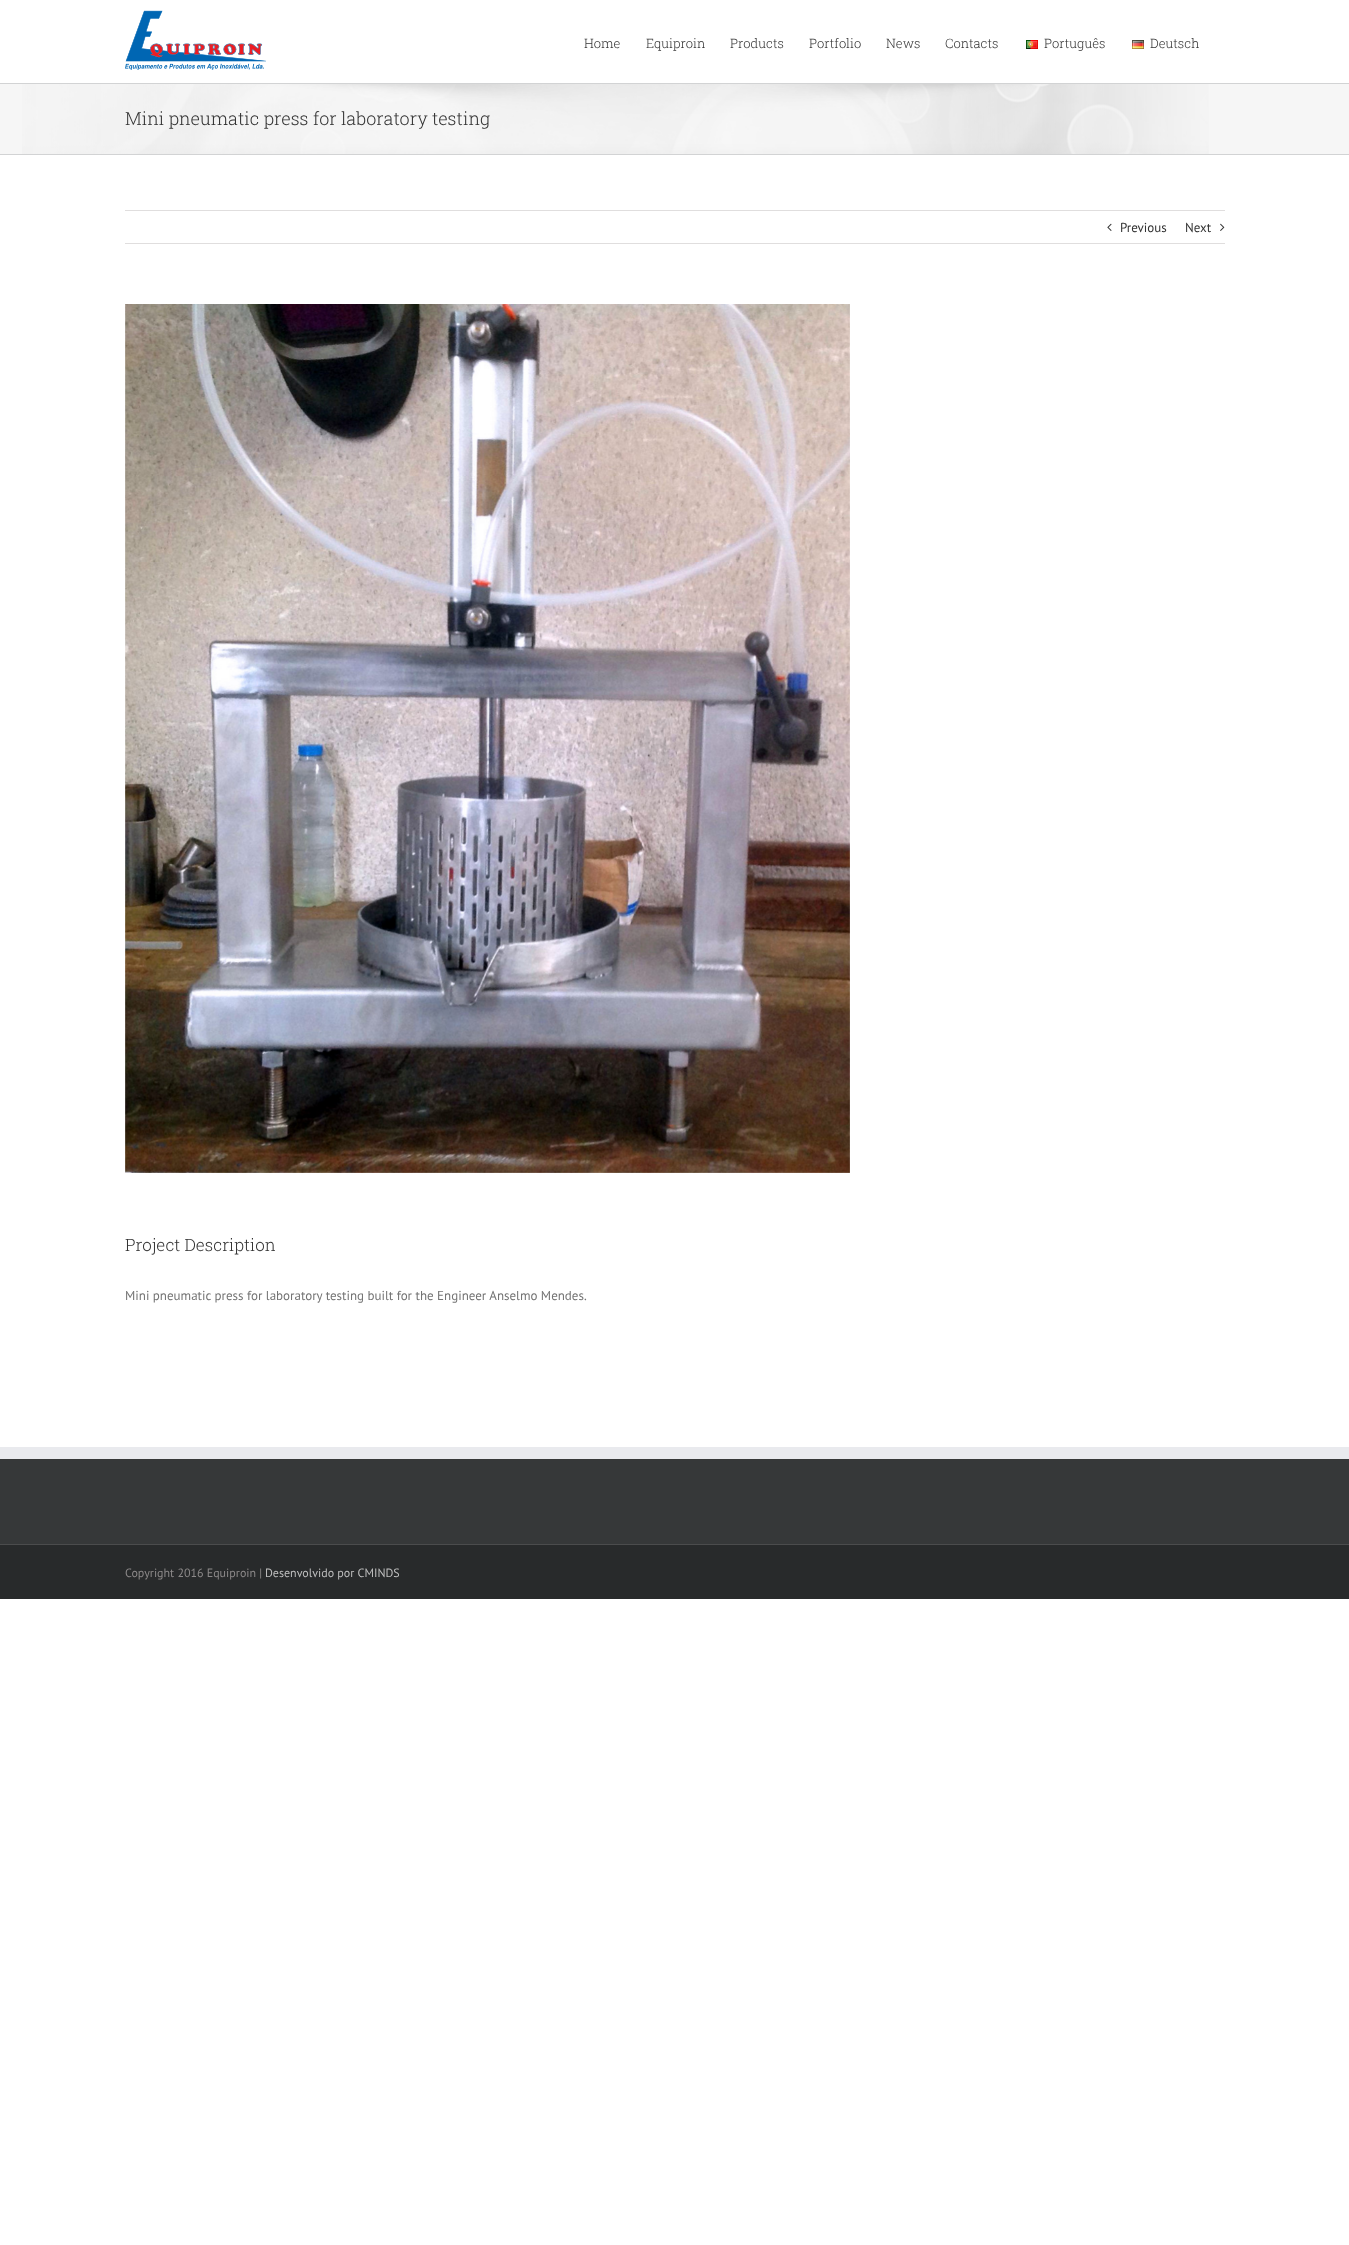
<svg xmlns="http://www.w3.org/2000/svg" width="1349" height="2245">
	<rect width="100%" height="100%" fill="#FFFFFF" />
	<image x="125" y="10" width="141" height="60" href="assets/img1.png" />
	<g font-family="Roboto Slab" font-size="13" font-weight="300" fill="#333333">
		<text x="584" y="48">Home</text>
		<text x="646" y="48">Equiproin</text>
		<text x="730" y="48">Products</text>
		<text x="809" y="48">Portfolio</text>
		<text x="886" y="48">News</text>
		<text x="945" y="48">Contacts</text>
	</g>
	<image x="1026" y="40" width="12" height="9" href="assets/img2.png" />
	<text x="1044" y="48" font-family="Roboto Slab" font-size="13" font-weight="300" fill="#333333">Português</text>
	<image x="1132" y="40" width="12" height="9" href="assets/img3.png" />
	<text x="1150" y="48" font-family="Roboto Slab" font-size="13" font-weight="300" fill="#333333">Deutsch</text>
	<rect x="0" y="84" width="1349" height="70" fill="#F6F6F6" />
	<image x="22" y="84" width="1187" height="70" href="assets/img4.png" />
	<rect x="0" y="83" width="1349" height="1" fill="#D2D3D4" />
	<rect x="0" y="154" width="1349" height="1" fill="#D2D3D4" />
	<text x="125" y="125" font-family="Roboto Slab" font-size="18" font-weight="300" fill="#333333">Mini pneumatic press for laboratory testing</text>
	<rect x="125" y="210" width="1100" height="1" fill="#E0DEDE" />
	<rect x="125" y="243" width="1100" height="1" fill="#E0DEDE" />
	<image x="1107" y="223" width="5" height="8" href="assets/img5.png" />
	<g font-family="PT Sans" font-size="13" fill="#333333">
		<text x="1120" y="232">Previous</text>
		<text x="1185" y="232">Next</text>
	</g>
	<image x="1220" y="223" width="5" height="8" href="assets/img6.png" />
	<image x="125" y="304" width="725" height="869" href="assets/img7.png" />
	<text x="125" y="1251" font-family="Roboto Slab" font-size="17" font-weight="300" fill="#333333">Project Description</text>
	<text x="125" y="1300" font-family="PT Sans" font-size="13" fill="#747474">Mini pneumatic press for laboratory testing built for the Engineer Anselmo Mendes.</text>
	<rect x="0" y="1459" width="1349" height="85" fill="#363839" />
	<rect x="0" y="1447" width="1349" height="12" fill="#E9EAEE" />
	<rect x="0" y="1545" width="1349" height="54" fill="#282A2B" />
	<rect x="0" y="1544" width="1349" height="1" fill="#4B4C4D" />
	<text x="125" y="1577" font-family="PT Sans" font-size="12" fill="#8C8989">Copyright 2016 Equiproin |</text>
	<text x="265" y="1577" font-family="PT Sans" font-size="12" fill="#BFBFBF">Desenvolvido por CMINDS</text>
</svg>
